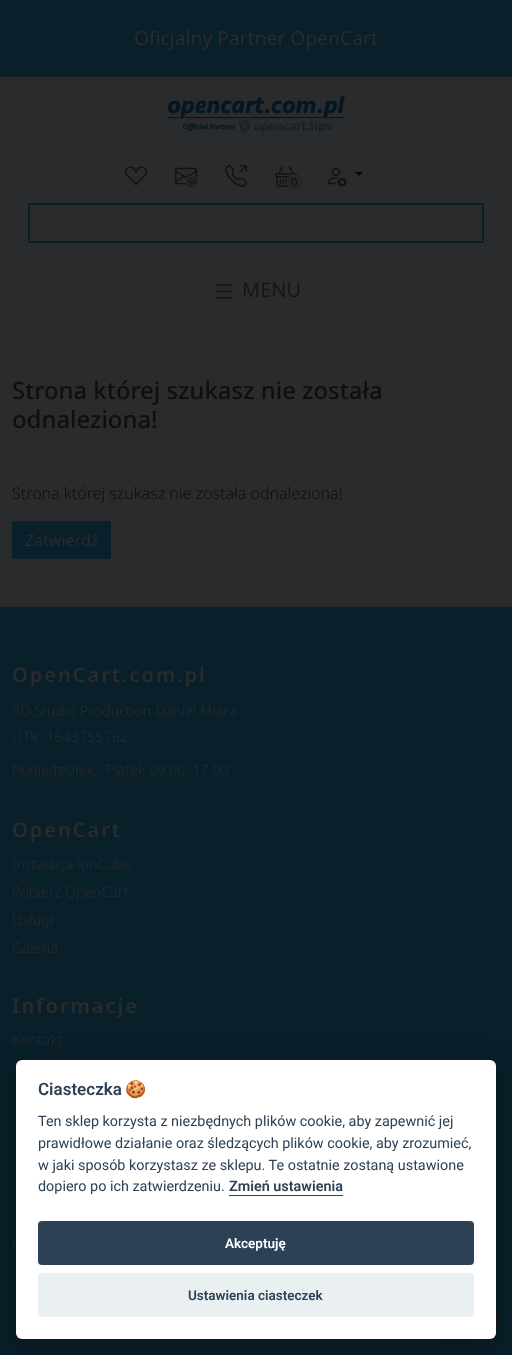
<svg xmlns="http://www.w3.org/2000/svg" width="512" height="1355">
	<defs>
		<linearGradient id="g1" gradientUnits="userSpaceOnUse" x1="396" y1="1275" x2="418" y2="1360"><stop offset="0" stop-color="#2A2111" /><stop offset="1" stop-color="#2A0E0F" /></linearGradient>
		<linearGradient id="g2" gradientUnits="userSpaceOnUse" x1="351" y1="1261" x2="463" y2="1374"><stop offset="0" stop-color="#2A2B2D" stop-opacity="0.2" /><stop offset="1" stop-color="#2A2B2D" stop-opacity="0" /></linearGradient>
	</defs>
	<rect width="100%" height="100%" fill="#2A2B2D" />
	<rect x="0" y="0" width="512" height="77" fill="#091F29" />
	<text x="134" y="45" font-family="Noto Sans" font-size="19.25" fill="#2A2B2D">Oficjalny Partner OpenCart</text>
	<image x="167" y="95" width="178" height="39" href="assets/img1.png" />
	<image x="125" y="166" width="22" height="20" href="assets/img2.png" />
	<image x="175" y="167" width="22" height="20" href="assets/img3.png" />
	<image x="225" y="165" width="22" height="22" href="assets/img4.png" />
	<image x="275" y="166" width="22" height="21" href="assets/img5.png" />
	<circle cx="294" cy="182" r="8" fill="#262625" />
	<text x="291" y="186" font-family="Noto Sans" font-size="11" font-weight="300" fill="#030507">0</text>
	<image x="327" y="167" width="20" height="20" href="assets/img6.png" />
	<path d="M355 172H363L359 176Z" fill="#030507" />
	<rect x="29" y="204" width="454" height="38" rx="1" fill="none" stroke="#091F29" stroke-width="2" />
	<image x="215" y="284" width="17" height="15" href="assets/img7.png" />
	<text x="242" y="297" font-family="Noto Sans" font-size="20" fill="#141618">MENU</text>
	<g font-family="Noto Sans" font-size="23.9" font-weight="500" fill="#0D0F11">
		<text x="12" y="399">Strona której szukasz nie została</text>
		<text x="12" y="428">odnaleziona!</text>
	</g>
	<text x="12" y="499" font-family="Noto Sans" font-size="16" font-weight="300" fill="#0D0F11">Strona której szukasz nie została odnaleziona!</text>
	<rect x="12" y="521" width="99" height="38" fill="#091F29" />
	<text x="25" y="546" font-family="Noto Sans" font-size="16" fill="#2A2B2D">Zatwierdź</text>
	<rect x="0" y="607" width="512" height="748" fill="#091F29" />
	<text x="12" y="682" font-family="Noto Sans" font-size="20" font-weight="600" letter-spacing="2" fill="#2A2B2D">OpenCart.com.pl</text>
	<g font-family="Noto Sans" font-size="14.4" font-weight="300" fill="#2A2B2D">
		<text x="12" y="716">3D Studio Production Daniel Miara</text>
		<text x="12" y="742">UTR: 1643755762</text>
		<text x="12" y="775">Poniedziałek - Piątek 09.00–17.00</text>
	</g>
	<text x="12" y="837" font-family="Noto Sans" font-size="20" font-weight="600" letter-spacing="2" fill="#2A2B2D">OpenCart</text>
	<g font-family="Noto Sans" font-size="14.4" font-weight="300" fill="#2A2B2D">
		<text x="12" y="869">Instalacja ionCube</text>
		<text x="12" y="897">Pobierz OpenCart</text>
		<text x="12" y="925">Usługi</text>
		<text x="12" y="953">Galeria</text>
	</g>
	<text x="12" y="1013" font-family="Noto Sans" font-size="20" font-weight="600" letter-spacing="2" fill="#2A2B2D">Informacje</text>
	<g font-family="Noto Sans" font-size="14.4" font-weight="300" fill="#2A2B2D">
		<text x="12" y="1045">Kontakt</text>
		<text x="12" y="1249">L</text>
	</g>
	<rect x="317" y="1295" width="180" height="45" rx="22.5" fill="url(#g1)" />
	<rect x="317" y="1296" width="180" height="45" rx="22.5" fill="#2A1014" fill-opacity="0.3" />
	<rect x="317" y="1295" width="180" height="45" rx="22.5" fill="url(#g2)" />
	<rect x="16" y="1070" width="480" height="279" rx="6" fill="#020203" fill-opacity="0.28" filter="blur(15px)" />
	<rect x="16" y="1060" width="480" height="279" rx="6" fill="#FFFFFF" />
	<text x="38" y="1095" font-family="Roboto" font-size="17" font-weight="600" fill="#2D4156">Ciasteczka</text>
	<text x="125" y="1095" font-family="Noto Color Emoji" font-size="17" font-weight="700" fill="#2D4156">🍪</text>
	<g font-family="Roboto" font-size="14.4" fill="#2D4156">
		<text x="38" y="1126">Ten sklep korzysta z niezbędnych plików cookie, aby zapewnić jej</text>
		<text x="38" y="1148">prawidłowe działanie oraz śledzących plików cookie, aby zrozumieć,</text>
		<text x="38" y="1170">w jaki sposób korzystasz ze sklepu. Te ostatnie zostaną ustawione</text>
		<text x="38" y="1191">dopiero po ich zatwierdzeniu.</text>
	</g>
	<text x="229" y="1191" font-family="Roboto" font-size="14.4" font-weight="600" fill="#2D4156">Zmień ustawienia</text>
	<rect x="229" y="1195" width="114" height="1" fill="#2D4156" />
	<rect x="38" y="1221" width="436" height="44" rx="4" fill="#2D4156" />
	<text x="225" y="1248" font-family="Roboto" font-size="13.5" font-weight="600" fill="#FFFFFF">Akceptuję</text>
	<rect x="38" y="1273" width="436" height="44" rx="4" fill="#EAEFF2" />
	<text x="188" y="1300" font-family="Roboto" font-size="13.5" font-weight="600" fill="#2D4156">Ustawienia ciasteczek</text>
</svg>
